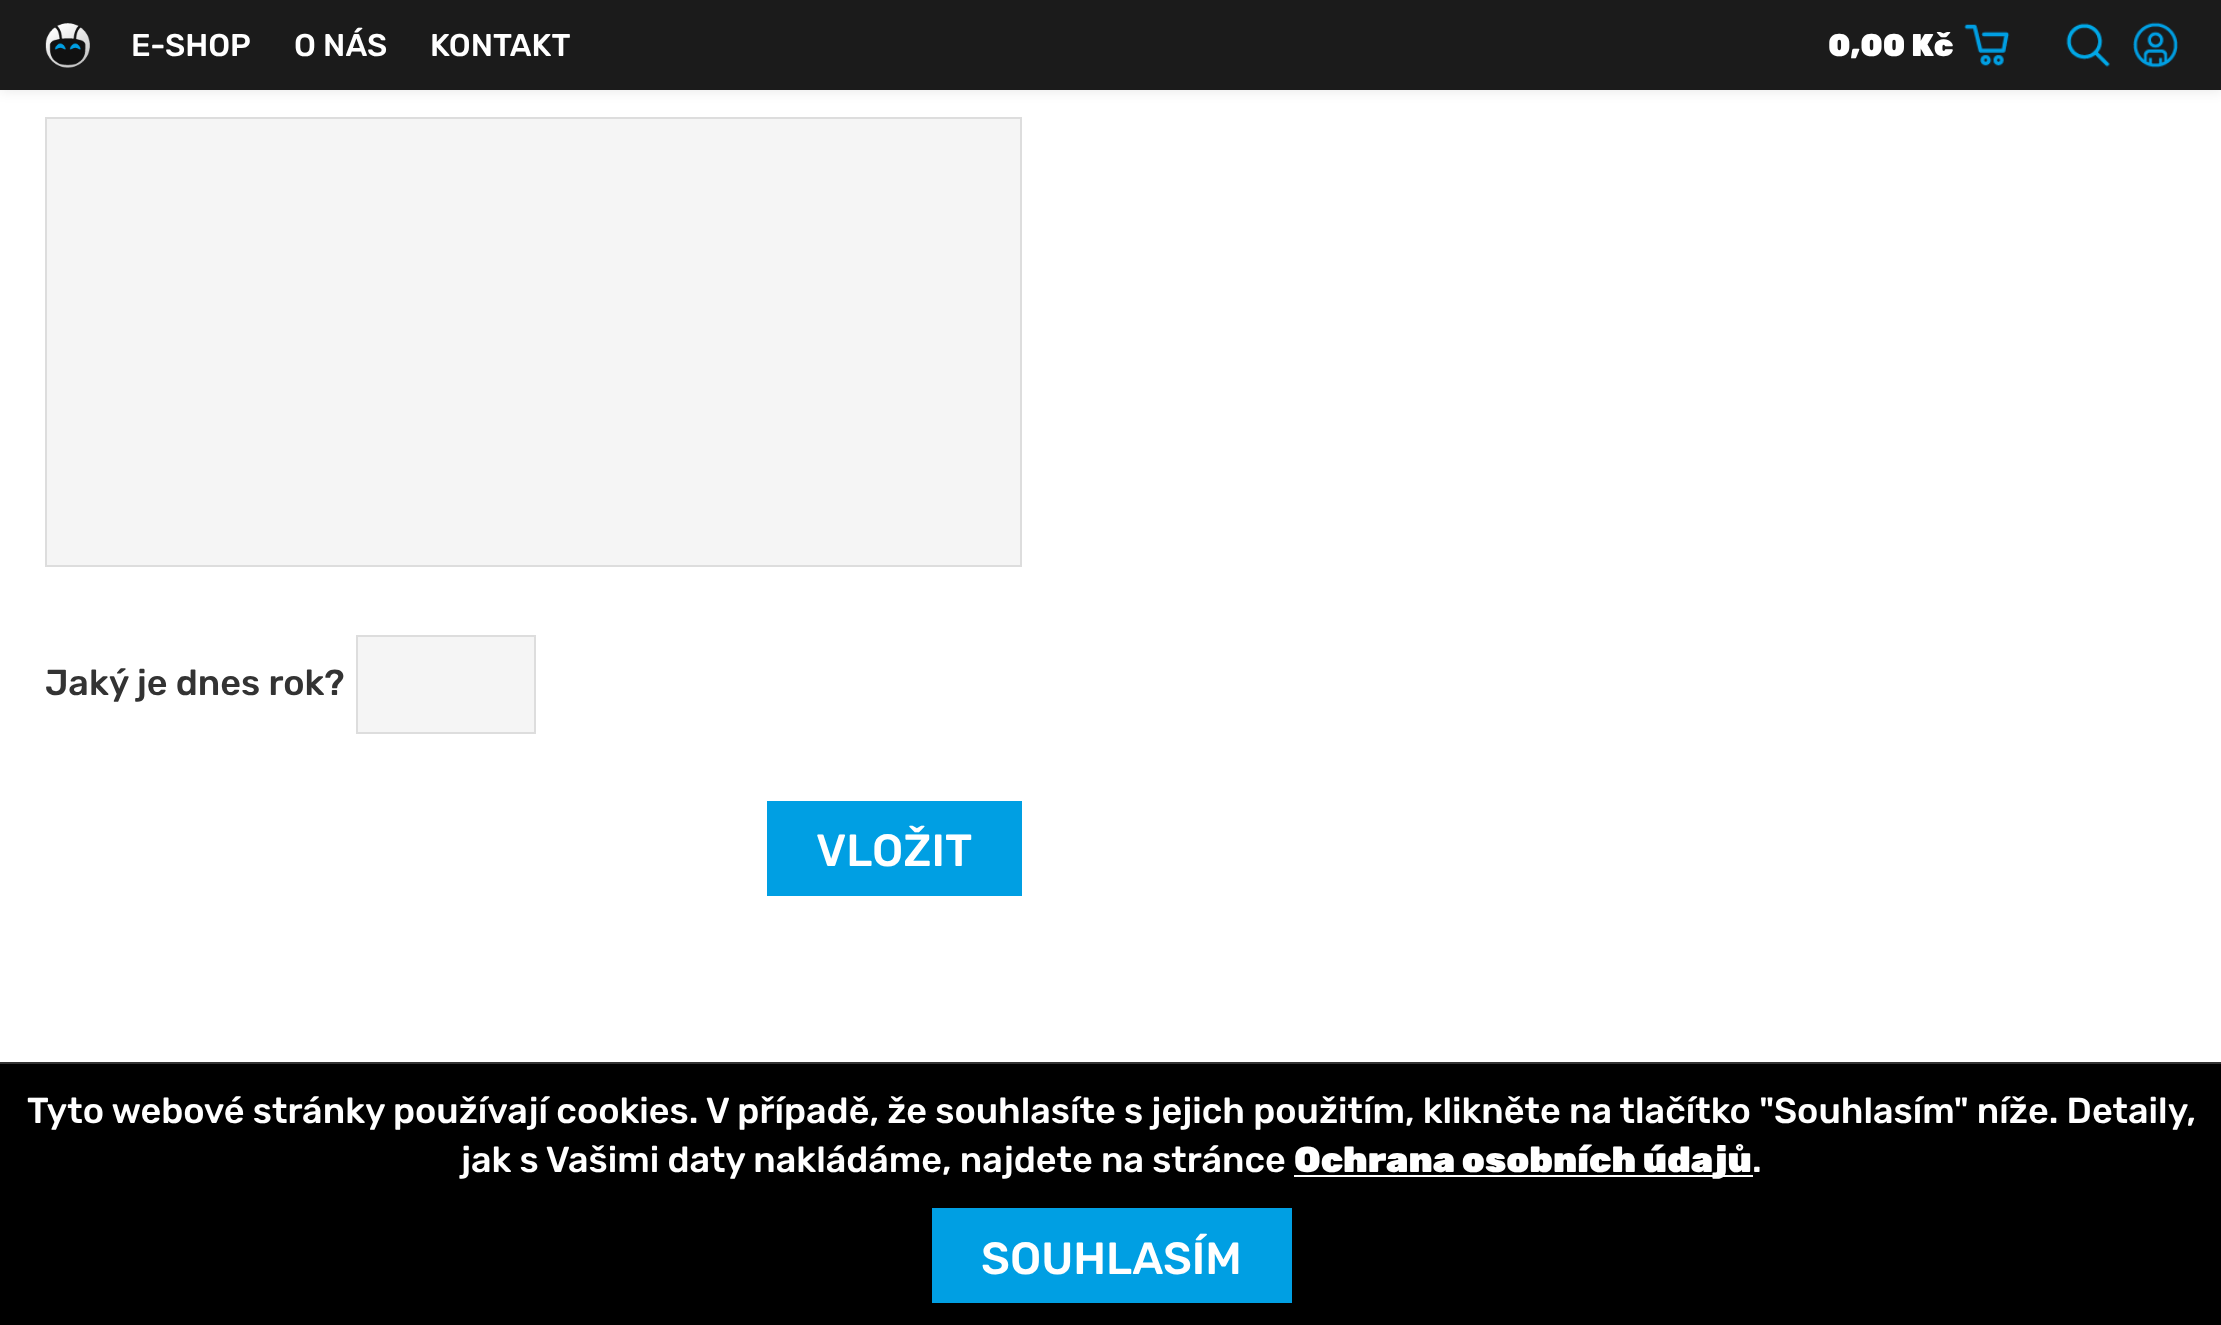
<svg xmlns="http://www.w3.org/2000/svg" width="2221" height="1325">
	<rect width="100%" height="100%" fill="#FFFFFF" />
	<rect x="0" y="0" width="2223" height="90" fill="#000000" fill-opacity="0.1" filter="blur(7px)" />
	<rect x="0" y="0" width="2221" height="90" fill="#1B1B1B" />
	<image x="45" y="23" width="45" height="45" href="assets/img1.png" />
	<g font-family="Rubik" font-size="31.5" font-weight="500" fill="#FFFFFF">
		<text x="131" y="56">E-SHOP</text>
		<text x="294" y="56">O NÁS</text>
		<text x="430" y="56">KONTAKT</text>
	</g>
	<text x="1828" y="56" font-family="Rubik" font-size="31.5" font-weight="900" fill="#FFFFFF">0,00 Kč</text>
	<image x="1964" y="24" width="46" height="42" href="assets/img2.png" />
	<image x="2066" y="23" width="44" height="44" href="assets/img3.png" />
	<image x="2133" y="22" width="45" height="46" href="assets/img4.png" />
	<rect x="46" y="118" width="975" height="448" fill="#F5F5F5" stroke="#DDDDDD" stroke-width="2" />
	<text x="45" y="695" font-family="Rubik" font-size="36" font-weight="500" fill="#333333">Jaký je dnes rok?</text>
	<rect x="357" y="636" width="178" height="97" fill="#F5F5F5" stroke="#DDDDDD" stroke-width="2" />
	<rect x="767" y="801" width="255" height="95" fill="#009FE3" />
	<text x="816" y="866" font-family="Rubik" font-size="45" font-weight="500" fill="#FFFFFF">VLOŽIT</text>
	<rect x="0" y="1064" width="2221" height="261" fill="#000000" />
	<rect x="0" y="1062" width="2221" height="2" fill="#333333" />
	<g font-family="Rubik" font-size="36" font-weight="500" fill="#FFFFFF">
		<text x="27" y="1123">Tyto webové stránky používají cookies. V případě, že souhlasíte s jejich použitím, klikněte na tlačítko "Souhlasím" níže. Detaily,</text>
		<text x="461" y="1172">jak s Vašimi daty nakládáme, najdete na stránce</text>
	</g>
	<rect x="1294" y="1175" width="459" height="2" fill="#FFFFFF" />
	<text x="1294" y="1172" font-family="Rubik" font-size="36" font-weight="900" fill="#FFFFFF">Ochrana osobních údajů</text>
	<text x="1752" y="1172" font-family="Rubik" font-size="36" font-weight="500" fill="#FFFFFF">.</text>
	<rect x="932" y="1208" width="360" height="95" fill="#009FE3" />
	<text x="981" y="1274" font-family="Rubik" font-size="45" font-weight="500" fill="#FFFFFF">SOUHLASÍM</text>
</svg>
